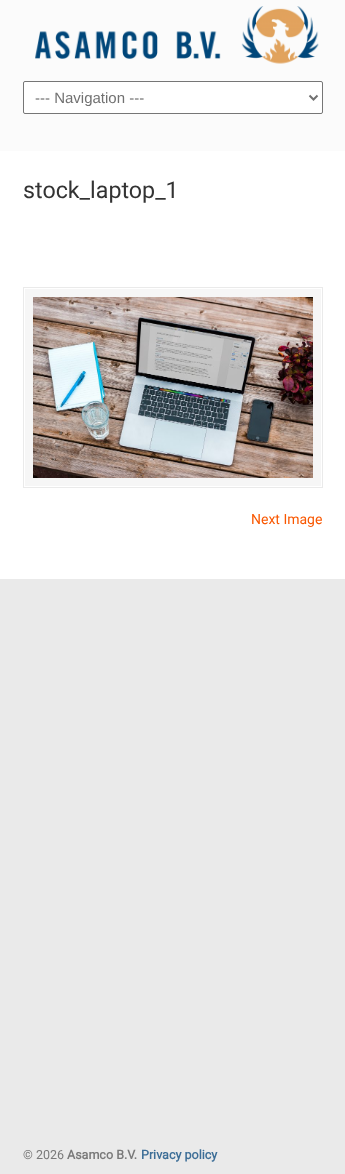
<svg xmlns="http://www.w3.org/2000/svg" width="345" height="1174">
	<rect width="100%" height="100%" fill="#EAEAEA" />
	<rect x="0" y="0" width="345" height="151" fill="#FBFBFB" />
	<image x="35" y="6" width="284" height="58" href="assets/img1.png" />
	<rect x="23.5" y="81.5" width="299" height="32" rx="1.5" fill="#FFFFFF" stroke="#767676" />
	<path d="M309.5 95.5L313.5 99.5L317.5 95.5" fill="none" stroke="#717171" stroke-width="2" />
	<text x="35" y="103" font-family="Liberation Sans" font-size="15" fill="#717171">--- Navigation ---</text>
	<rect x="0" y="151" width="345" height="428" fill="#FFFFFF" />
	<text x="23" y="198" font-family="Roboto" font-size="23.25" fill="#333333">stock_laptop_1</text>
	<rect x="25" y="289" width="296" height="197" fill="#F6F6F6" />
	<rect x="23.5" y="287.5" width="299" height="200" fill="none" stroke="#EAEAEA" />
	<image x="33" y="297" width="280" height="181" href="assets/img2.png" />
	<text x="251" y="524" font-family="Roboto" font-size="14" fill="#F95700">Next Image</text>
	<text x="23" y="1159" font-family="Roboto" font-size="12.5" fill="#797979">© 2026</text>
	<text x="67" y="1159" font-family="Roboto" font-size="12.5" font-weight="700" fill="#797979">Asamco B.V.</text>
	<text x="141" y="1159" font-family="Roboto" font-size="12.5" font-weight="700" fill="#3D6E97">Privacy policy</text>
</svg>
